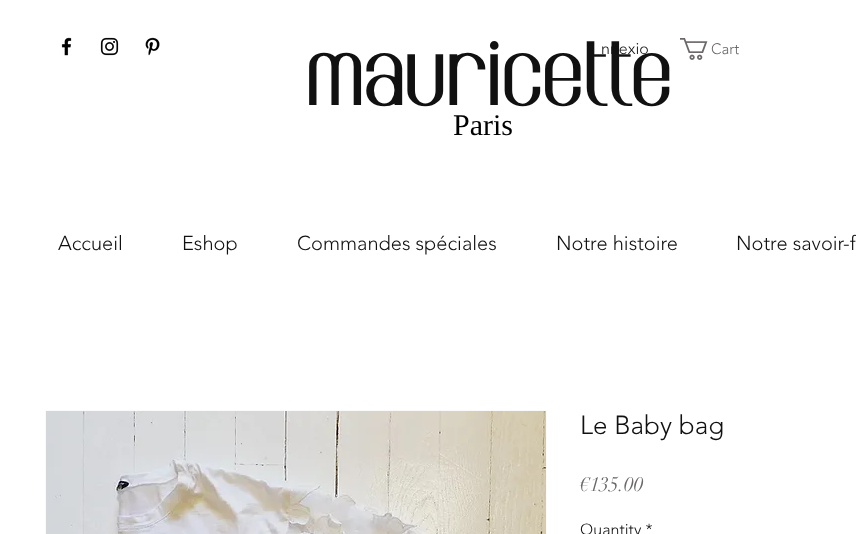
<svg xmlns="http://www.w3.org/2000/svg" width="856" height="534">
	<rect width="100%" height="100%" fill="#FFFFFF" />
	<image x="61" y="37" width="11" height="19" href="assets/img1.png" />
	<image x="100" y="37" width="19" height="19" href="assets/img2.png" />
	<image x="145" y="37" width="15" height="19" href="assets/img3.png" />
	<text x="306" y="105" font-family="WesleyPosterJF" font-size="80" font-weight="300" fill="#111111">mauricette</text>
	<text x="453" y="135" font-family="Liberation Serif" font-size="30" fill="#000000">Paris</text>
	<g font-family="'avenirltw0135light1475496'" font-size="20" font-weight="300" fill="#111111">
		<text x="58" y="250">Accueil</text>
		<text x="182" y="250">Eshop</text>
		<text x="297" y="250">Commandes spéciales</text>
		<text x="556" y="250">Notre histoire</text>
		<text x="736" y="250">Notre savoir-f</text>
	</g>
	<text x="601" y="54" font-family="'avenirltw0135light1475496'" font-size="16" font-weight="300" fill="#111111">nnexio</text>
	<image x="680" y="38" width="28" height="22" href="assets/img4.png" />
	<text x="711" y="54" font-family="'avenirltw0135light1475496'" font-size="15" font-weight="300" fill="#6C6868">Cart</text>
	<rect x="45.5" y="410.5" width="501" height="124" fill="none" stroke="#FAFAFA" />
	<image x="46" y="411" width="500" height="123" href="assets/img5.png" />
	<text x="580" y="434" font-family="'avenirltw0135light1475496'" font-size="26" font-weight="300" fill="#111111">Le Baby bag</text>
	<text x="580" y="491" font-family="didot" font-size="20" fill="#6C6868">€135.00</text>
	<text x="580" y="535" font-family="'avenirltw0135light1475496'" font-size="16" font-weight="300" fill="#111111">Quantity *</text>
</svg>
